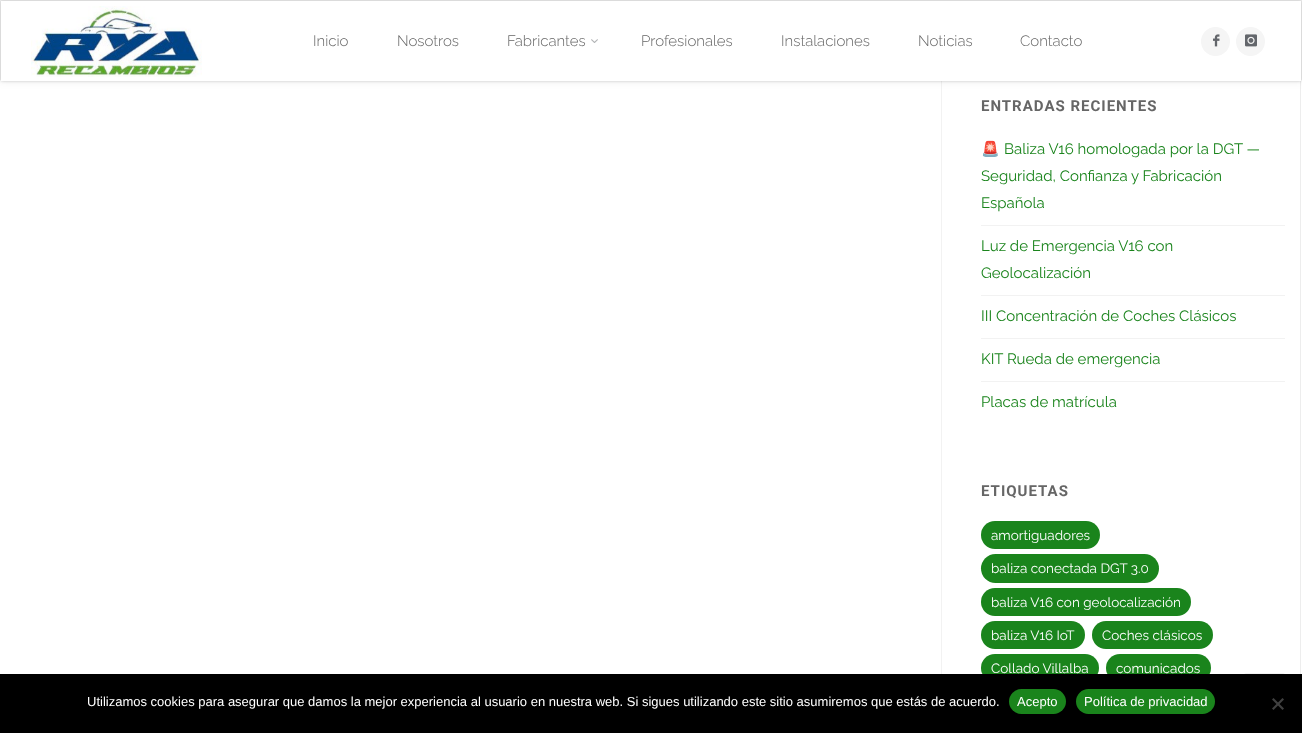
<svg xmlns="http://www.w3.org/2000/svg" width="1302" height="733">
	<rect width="100%" height="100%" fill="#FFFFFF" />
	<path d="M943-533C943.5-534 945-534.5 946-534.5H1296C1297-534.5 1298.5-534 1299-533C1300-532.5 1300.5-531 1300.5-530V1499C1300.5 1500 1300 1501.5 1299 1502C1298.5 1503 1297 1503.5 1296 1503.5H946C945 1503.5 943.5 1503 943 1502" fill="none" stroke="#EDEDED" />
	<path d="M943 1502L941.5 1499V-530L943-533" fill="none" stroke="#F2F2F2" />
	<rect x="-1" y="-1" width="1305" height="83" fill="#000000" fill-opacity="0.05" filter="blur(4px)" />
	<rect x="0.5" y="0.5" width="1301" height="79" fill="none" stroke="#EDEDED" />
	<rect x="1" y="1" width="1300" height="80" fill="#000000" fill-opacity="0.2" filter="blur(1.5px)" />
	<rect x="1" y="1" width="1300" height="80" fill="#FFFFFF" />
	<image x="31" y="6" width="171" height="71" href="assets/img1.png" />
	<g font-family="Raleway" font-size="15" font-weight="300" fill="#666666">
		<text x="313" y="46">Inicio</text>
		<text x="397" y="46">Nosotros</text>
		<text x="507" y="46">Fabricantes</text>
	</g>
	<image x="591" y="39" width="7" height="4" href="assets/img2.png" />
	<g font-family="Raleway" font-size="15" font-weight="300" fill="#666666">
		<text x="641" y="46">Profesionales</text>
		<text x="781" y="46">Instalaciones</text>
		<text x="918" y="46">Noticias</text>
		<text x="1020" y="46">Contacto</text>
	</g>
	<circle cx="1215.5" cy="41.5" r="14.5" fill="#F5F5F5" />
	<image x="1213" y="34" width="7" height="13" href="assets/img3.png" />
	<circle cx="1250.5" cy="41.5" r="14.5" fill="#F5F5F5" />
	<image x="1245" y="34" width="12" height="13" href="assets/img4.png" />
	<text x="981" y="111" font-family="Roboto" font-size="15" font-weight="700" letter-spacing="1" fill="#666666">ENTRADAS RECIENTES</text>
	<rect x="981" y="225" width="304" height="1" fill="#F2F2F2" />
	<text x="981" y="154" font-family="Noto Color Emoji" font-size="15" fill="#1A841C">🚨</text>
	<g font-family="Raleway" font-size="15" fill="#1A841C">
		<text x="1004" y="154">Baliza V16 homologada por la DGT —</text>
		<text x="981" y="181">Seguridad, Confianza y Fabricación</text>
		<text x="981" y="208">Española</text>
	</g>
	<rect x="981" y="295" width="304" height="1" fill="#F2F2F2" />
	<g font-family="Raleway" font-size="15" fill="#1A841C">
		<text x="981" y="251">Luz de Emergencia V16 con</text>
		<text x="981" y="278">Geolocalización</text>
	</g>
	<rect x="981" y="338" width="304" height="1" fill="#F2F2F2" />
	<text x="981" y="321" font-family="Raleway" font-size="15" fill="#1A841C">III Concentración de Coches Clásicos</text>
	<rect x="981" y="381" width="304" height="1" fill="#F2F2F2" />
	<g font-family="Raleway" font-size="15" fill="#1A841C">
		<text x="981" y="364">KIT Rueda de emergencia</text>
		<text x="981" y="407">Placas de matrícula</text>
	</g>
	<text x="981" y="496" font-family="Roboto" font-size="15" font-weight="700" letter-spacing="1" fill="#666666">ETIQUETAS</text>
	<rect x="981" y="521" width="119" height="28" rx="14" fill="#1A841C" />
	<text x="991" y="540" font-family="Raleway" font-size="13.5" fill="#FFFFFF">amortiguadores</text>
	<rect x="981" y="554" width="178" height="29" rx="14.5" fill="#1A841C" />
	<text x="991" y="573" font-family="Raleway" font-size="13.5" fill="#FFFFFF">baliza conectada DGT 3.0</text>
	<rect x="981" y="588" width="210" height="28" rx="14" fill="#1A841C" />
	<text x="991" y="607" font-family="Raleway" font-size="13.5" fill="#FFFFFF">baliza V16 con geolocalización</text>
	<rect x="981" y="621" width="104" height="28" rx="14" fill="#1A841C" />
	<text x="991" y="640" font-family="Raleway" font-size="13.5" fill="#FFFFFF">baliza V16 IoT</text>
	<rect x="1092" y="621" width="121" height="28" rx="14" fill="#1A841C" />
	<text x="1102" y="640" font-family="Raleway" font-size="13.5" fill="#FFFFFF">Coches clásicos</text>
	<rect x="981" y="654" width="118" height="28" rx="14" fill="#1A841C" />
	<text x="991" y="673" font-family="Raleway" font-size="13.5" fill="#FFFFFF">Collado Villalba</text>
	<rect x="1106" y="654" width="105" height="28" rx="14" fill="#1A841C" />
	<text x="1116" y="673" font-family="Raleway" font-size="13.5" fill="#FFFFFF">comunicados</text>
	<rect x="1242" y="673" width="45" height="45" rx="5" fill="#F3F3F3" />
	<rect x="0" y="674" width="1302" height="59" fill="#000000" />
	<text x="87" y="706" font-family="Liberation Sans" font-size="13" fill="#FFFFFF">Utilizamos cookies para asegurar que damos la mejor experiencia al usuario en nuestra web. Si sigues utilizando este sitio asumiremos que estás de acuerdo.</text>
	<rect x="1009" y="689" width="57" height="25" rx="12.5" fill="#1A841C" />
	<text x="1017" y="706" font-family="Liberation Sans" font-size="13" fill="#FFFFFF">Acepto</text>
	<rect x="1076" y="689" width="139" height="25" rx="12.5" fill="#1A841C" />
	<text x="1084" y="706" font-family="Liberation Sans" font-size="13" fill="#FFFFFF">Política de privacidad</text>
	<path d="M1282.5 698L1284 699.5L1273.5 710L1272 708.5Z" fill="#404040" />
	<path d="M1272 699.5L1273.5 698L1284 708.5L1282.5 710Z" fill="#404040" />
</svg>
